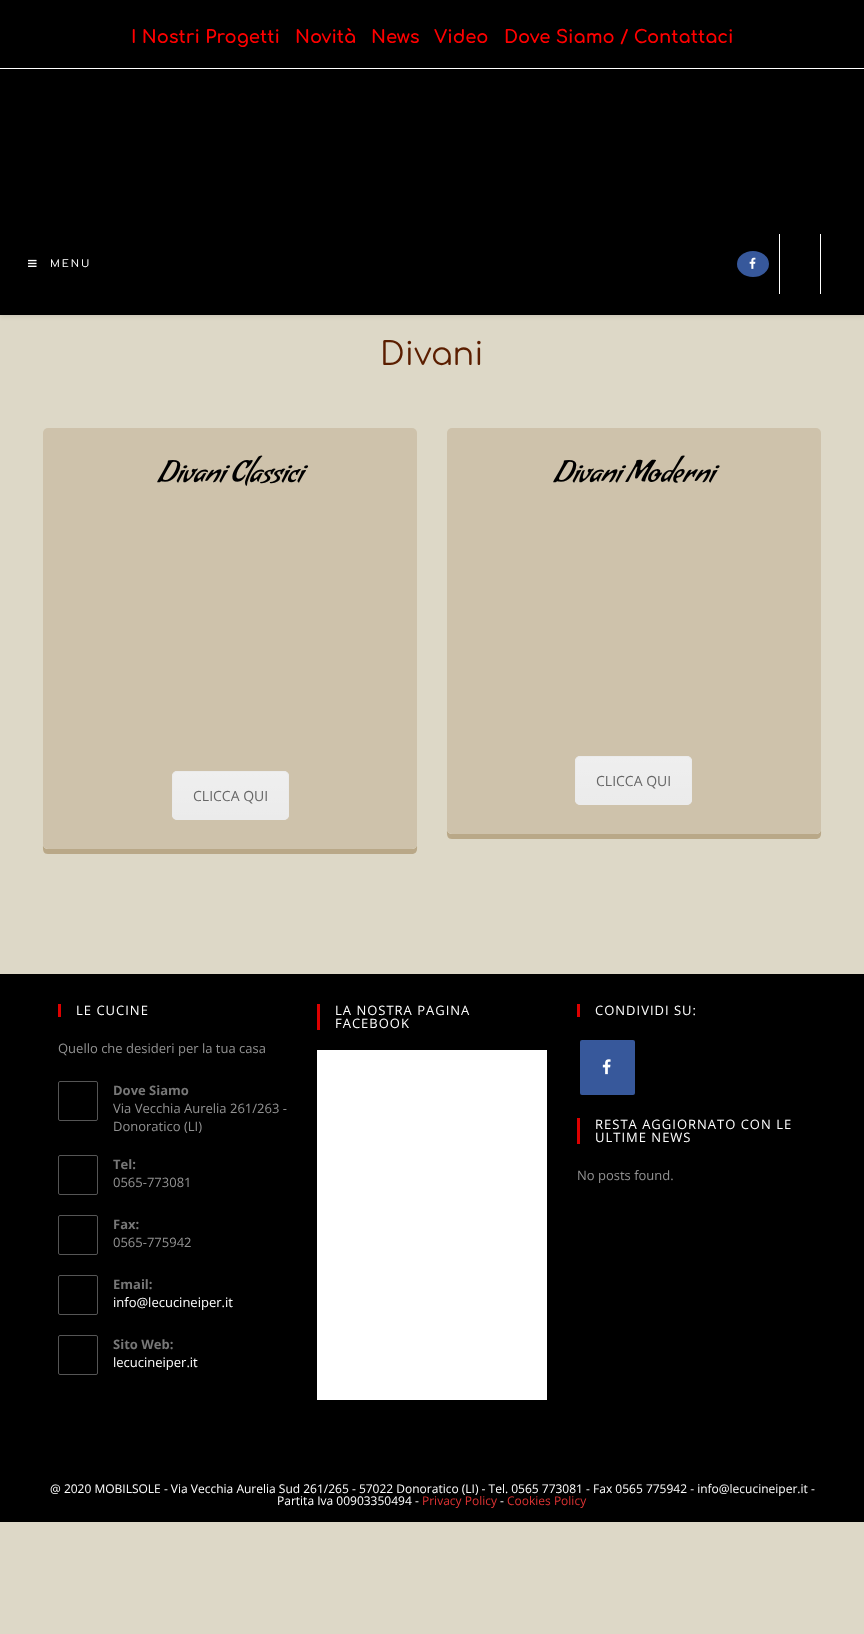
<svg xmlns="http://www.w3.org/2000/svg" width="864" height="1634">
	<defs>
		<clipPath id="clip1"><path d="M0 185H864V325H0ZM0 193H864V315H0Z" clip-rule="evenodd" /></clipPath>
		<clipPath id="clip2"><rect x="172" y="771" width="117" height="49" rx="5" /></clipPath>
		<linearGradient id="g1" gradientUnits="userSpaceOnUse" x1="231" y1="772" x2="231" y2="819"><stop offset="0" stop-color="#FFFFFF" stop-opacity="0.2" /><stop offset="1" stop-color="#FFFFFF" stop-opacity="0.01" /></linearGradient>
		<clipPath id="clip3"><rect x="575" y="756" width="117" height="49" rx="5" /></clipPath>
		<linearGradient id="g2" gradientUnits="userSpaceOnUse" x1="634" y1="757" x2="634" y2="804"><stop offset="0" stop-color="#FFFFFF" stop-opacity="0.2" /><stop offset="1" stop-color="#FFFFFF" stop-opacity="0.01" /></linearGradient>
	</defs>
	<rect width="100%" height="100%" fill="#DDD8C7" />
	<rect x="0" y="0" width="864" height="68" fill="#000000" />
	<rect x="0" y="68" width="864" height="1" fill="#FFFFFF" />
	<g font-family="Comfortaa" font-size="18" font-weight="700" fill="#FF0000">
		<text x="131" y="43">I Nostri Progetti</text>
		<text x="295" y="43">Novità</text>
		<text x="371" y="43">News</text>
		<text x="434" y="43">Video</text>
		<text x="504" y="43">Dove Siamo / Contattaci</text>
	</g>
	<rect x="0" y="69" width="864" height="246" fill="#000000" />
	<g clip-path="url(#clip1)">
		<rect x="0" y="194" width="864" height="122" fill="#000000" fill-opacity="0.1" filter="blur(2.5px)" />
	</g>
	<image x="28" y="259" width="9" height="8" href="assets/img1.png" />
	<text x="50" y="267" font-family="Comfortaa" font-size="10" font-weight="600" letter-spacing="2" fill="#FFFFFF">MENU</text>
	<ellipse cx="753" cy="264" rx="16" ry="13" fill="#37589B" />
	<image x="749" y="257" width="7" height="12" href="assets/img2.png" />
	<rect x="820" y="234" width="1" height="60" fill="#FFFFFF" />
	<rect x="779" y="234" width="1" height="60" fill="#FFFFFF" />
	<text x="380" y="365" font-family="Comfortaa" font-size="32" fill="#5B1E00">Divani</text>
	<path d="M43 844C43 848 42 854 48 854H413C418 853 417 848 417 844C417 847 415 849 412 849H48C45 849 43 847 43 844Z" fill="#B9A888" />
	<rect x="43" y="428" width="374" height="421" rx="5" fill="#CEC2AB" />
	<text x="158" y="481" font-family="Condiment" font-size="30" fill="#000000">Divani Classici</text>
	<rect x="172" y="771" width="117" height="49" rx="5" fill="#EBEBEB" />
	<g clip-path="url(#clip2)">
		<rect x="172" y="772" width="117" height="44" fill="url(#g1)" />
	</g>
	<rect x="172.5" y="771.5" width="116" height="48" rx="4.5" fill="none" stroke="#EBEBEB" />
	<text x="193" y="801" font-family="Open Sans" font-size="14" fill="#666666">CLICCA QUI</text>
	<path d="M447 829C447 833 446 839 452 839H817C822 838 821 833 821 829C821 832 819 834 816 834H452C449 834 447 832 447 829Z" fill="#B9A888" />
	<rect x="447" y="428" width="374" height="406" rx="5" fill="#CEC2AB" />
	<text x="554" y="481" font-family="Condiment" font-size="30" fill="#000000">Divani Moderni</text>
	<rect x="575" y="756" width="117" height="49" rx="5" fill="#EBEBEB" />
	<g clip-path="url(#clip3)">
		<rect x="575" y="757" width="117" height="44" fill="url(#g2)" />
	</g>
	<rect x="575.5" y="756.5" width="116" height="48" rx="4.5" fill="none" stroke="#EBEBEB" />
	<text x="596" y="786" font-family="Open Sans" font-size="14" fill="#666666">CLICCA QUI</text>
	<rect x="0" y="974" width="864" height="548" fill="#000000" />
	<rect x="58" y="1004" width="3" height="13" fill="#DD0000" />
	<text x="76" y="1015" font-family="Open Sans" font-size="13" letter-spacing="1" fill="#FFFFFF">LE CUCINE</text>
	<text x="58" y="1053" font-family="Open Sans" font-size="13" fill="#929292">Quello che desideri per la tua casa</text>
	<rect x="58.5" y="1081.5" width="39" height="39" rx="1.5" fill="none" stroke="#555555" />
	<text x="113" y="1095" font-family="Open Sans" font-size="13" font-weight="700" fill="#777777">Dove Siamo</text>
	<g font-family="Open Sans" font-size="13" fill="#929292">
		<text x="113" y="1113">Via Vecchia Aurelia 261/263 -</text>
		<text x="113" y="1131">Donoratico (LI)</text>
	</g>
	<rect x="58.5" y="1155.5" width="39" height="39" rx="1.5" fill="none" stroke="#555555" />
	<text x="113" y="1169" font-family="Open Sans" font-size="13" font-weight="700" fill="#777777">Tel:</text>
	<text x="113" y="1187" font-family="Open Sans" font-size="13" fill="#929292">0565-773081</text>
	<rect x="58.5" y="1215.5" width="39" height="39" rx="1.5" fill="none" stroke="#555555" />
	<text x="113" y="1229" font-family="Open Sans" font-size="13" font-weight="700" fill="#777777">Fax:</text>
	<text x="113" y="1247" font-family="Open Sans" font-size="13" fill="#929292">0565-775942</text>
	<rect x="58.5" y="1275.5" width="39" height="39" rx="1.5" fill="none" stroke="#555555" />
	<text x="113" y="1289" font-family="Open Sans" font-size="13" font-weight="700" fill="#777777">Email:</text>
	<text x="113" y="1307" font-family="Open Sans" font-size="13" fill="#FFFFFF">info@lecucineiper.it</text>
	<rect x="58.5" y="1335.5" width="39" height="39" rx="1.5" fill="none" stroke="#555555" />
	<text x="113" y="1349" font-family="Open Sans" font-size="13" font-weight="700" fill="#777777">Sito Web:</text>
	<text x="113" y="1367" font-family="Open Sans" font-size="13" fill="#FFFFFF">lecucineiper.it</text>
	<rect x="317" y="1004" width="3" height="26" fill="#DD0000" />
	<g font-family="Open Sans" font-size="13" letter-spacing="1" fill="#FFFFFF">
		<text x="335" y="1015">LA NOSTRA PAGINA</text>
		<text x="335" y="1028">FACEBOOK</text>
	</g>
	<rect x="317" y="1050" width="230" height="350" fill="#FFFFFF" />
	<rect x="577" y="1004" width="3" height="13" fill="#DD0000" />
	<text x="595" y="1015" font-family="Open Sans" font-size="13" letter-spacing="1" fill="#FFFFFF">CONDIVIDI SU:</text>
	<rect x="580" y="1040" width="55" height="55" rx="2" fill="#37589B" />
	<image x="602" y="1059" width="9" height="16" href="assets/img3.png" />
	<rect x="577" y="1118" width="3" height="26" fill="#DD0000" />
	<g font-family="Open Sans" font-size="13" letter-spacing="1" fill="#FFFFFF">
		<text x="595" y="1129">RESTA AGGIORNATO CON LE</text>
		<text x="595" y="1142">ULTIME NEWS</text>
	</g>
	<text x="577" y="1180" font-family="Open Sans" font-size="13" fill="#929292">No posts found.</text>
	<g font-family="Open Sans" font-size="12" fill="#FFFFFF">
		<text x="50" y="1493">@ 2020 MOBILSOLE - Via Vecchia Aurelia Sud 261/265 - 57022 Donoratico (LI) - Tel. 0565 773081 - Fax 0565 775942 - info@lecucineiper.it -</text>
		<text x="277" y="1505">Partita Iva 00903350494 -</text>
	</g>
	<text x="422" y="1505" font-family="Open Sans" font-size="12" fill="#DD3333">Privacy Policy</text>
	<text x="500" y="1505" font-family="Open Sans" font-size="12" fill="#FFFFFF">-</text>
	<text x="507" y="1505" font-family="Open Sans" font-size="12" fill="#DD3333">Cookies Policy</text>
</svg>
